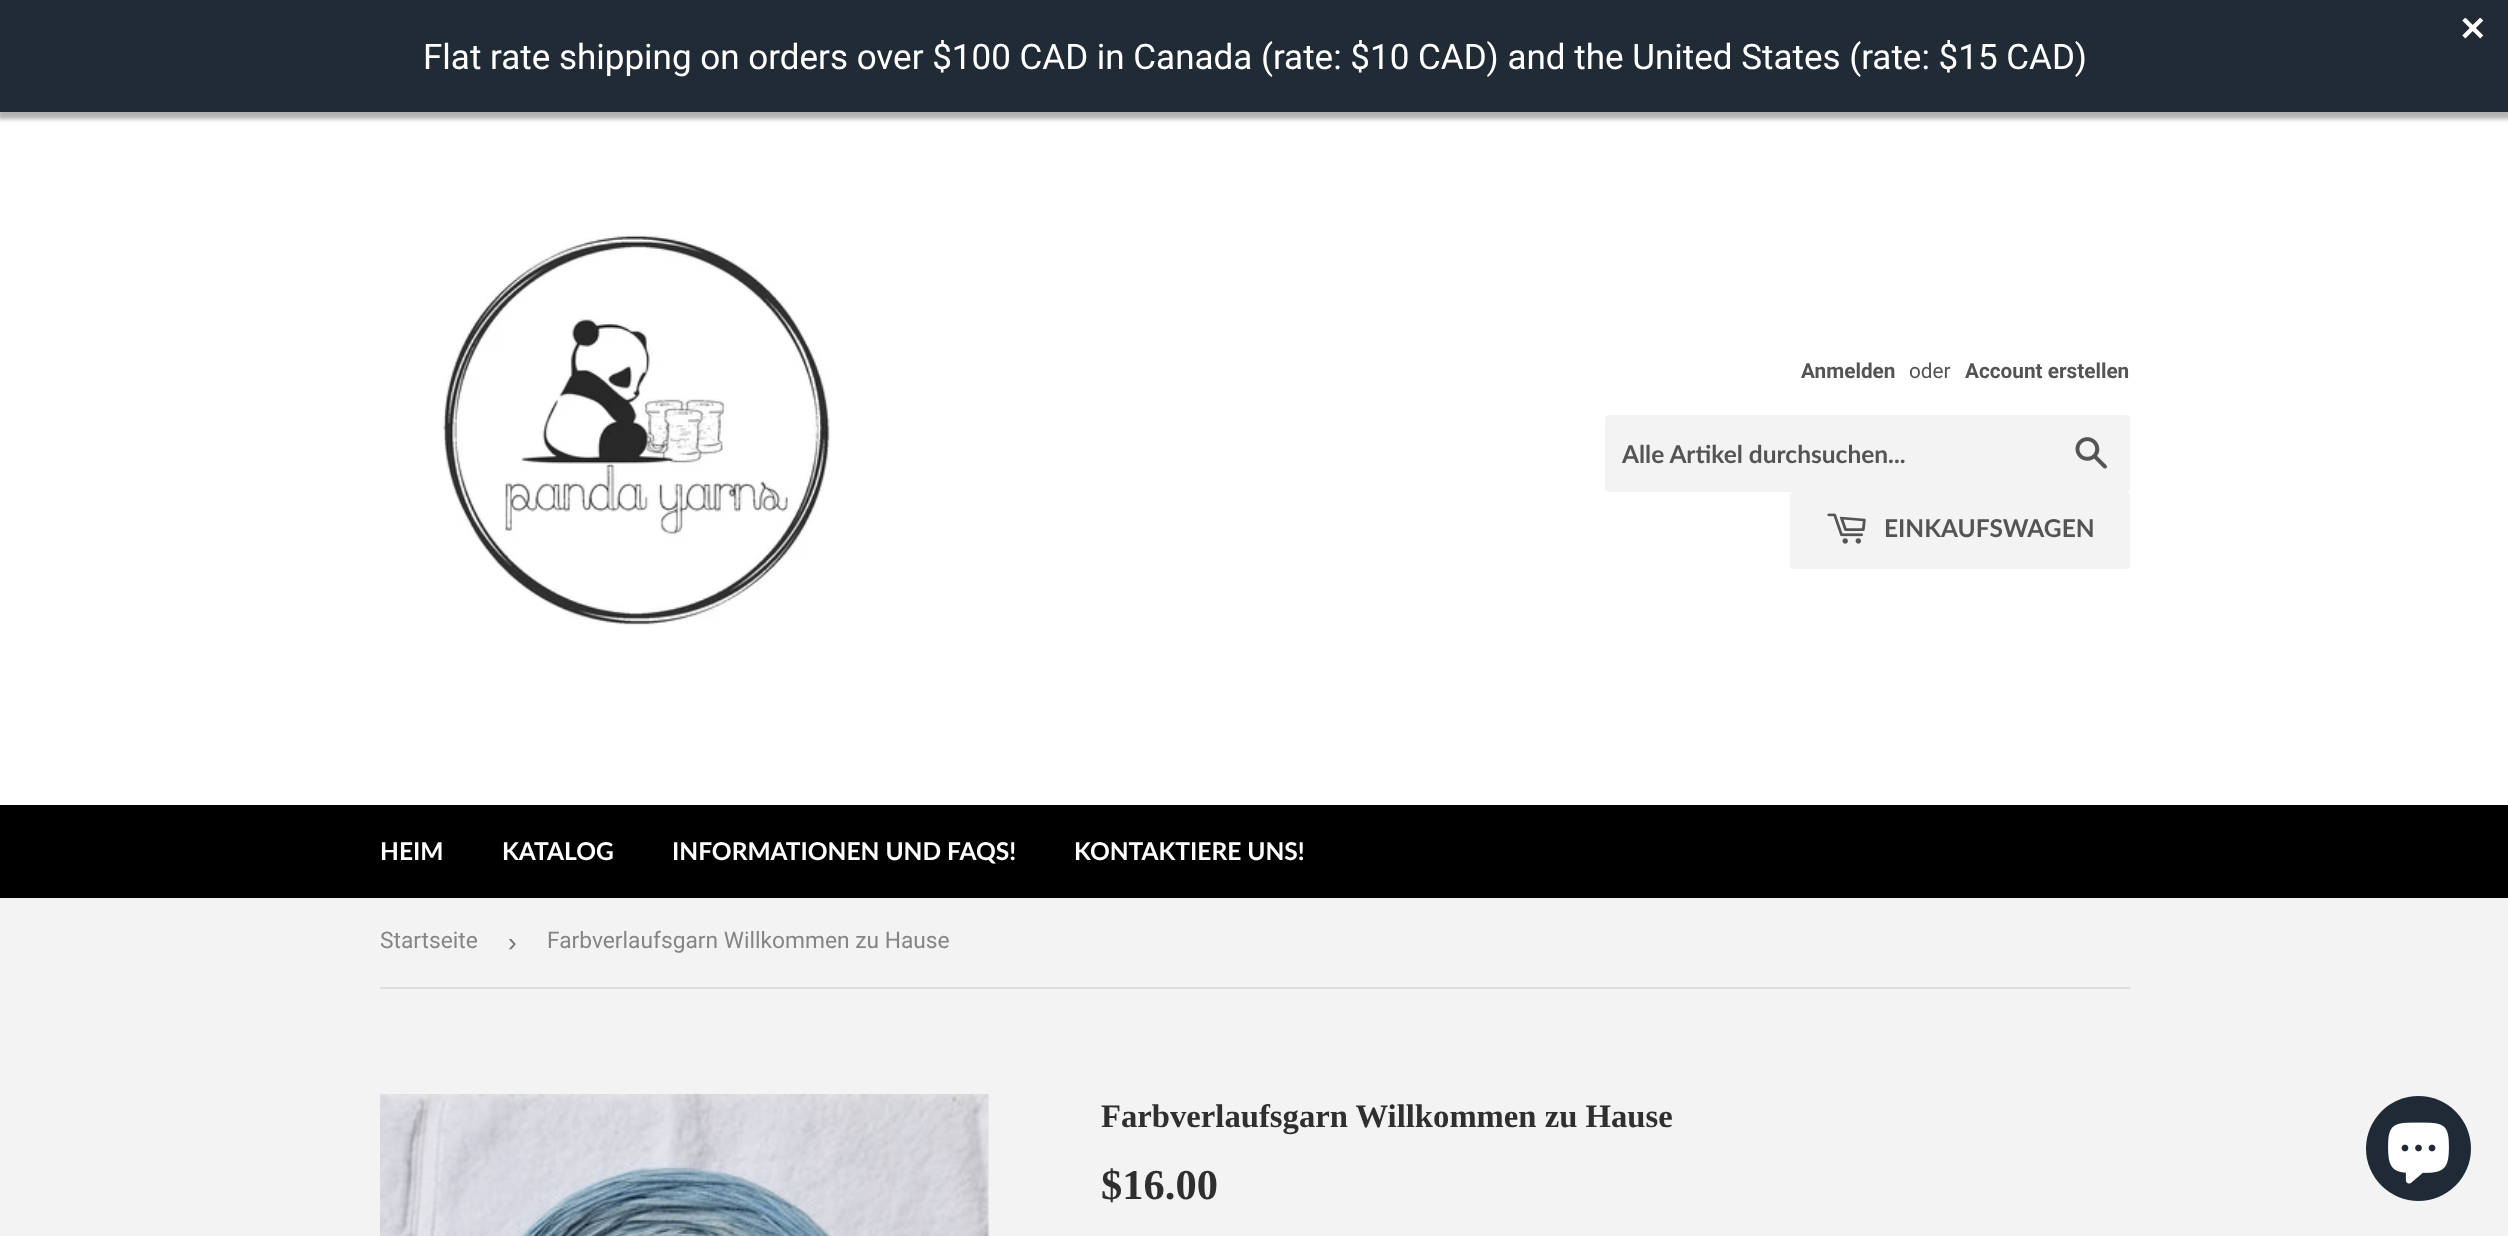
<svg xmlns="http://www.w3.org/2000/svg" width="2508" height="1236">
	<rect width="100%" height="100%" fill="#F3F3F3" />
	<rect x="0" y="112" width="2508" height="693" fill="#FFFFFF" />
	<rect x="-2" y="4" width="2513" height="115" fill="#000000" fill-opacity="0.3" filter="blur(2px)" />
	<rect x="0" y="0" width="2508" height="112" fill="#212B35" />
	<image x="2462" y="18" width="21" height="21" href="assets/img1.png" />
	<text x="423" y="69" font-family="Roboto" font-size="35" fill="#FFFFFF">Flat rate shipping on orders over $100 CAD in Canada (rate: $10 CAD) and the United States (rate: $15 CAD)</text>
	<image x="441" y="234" width="389" height="391" href="assets/img2.png" />
	<text x="1801" y="378" font-family="Roboto" font-size="20.75" font-weight="700" fill="#545454">Anmelden</text>
	<text x="1909" y="378" font-family="Roboto" font-size="20.75" fill="#545454">oder</text>
	<text x="1965" y="378" font-family="Roboto" font-size="20.75" font-weight="700" fill="#545454">Account erstellen</text>
	<rect x="1605" y="415" width="525" height="77" rx="4" fill="#F3F3F3" />
	<text x="1622" y="463" font-family="Lato" font-size="24.5" font-weight="700" fill="#545454">Alle Artikel durchsuchen...</text>
	<image x="2075" y="437" width="32" height="32" href="assets/img3.png" />
	<rect x="1790" y="492" width="340" height="77" rx="4" fill="#F3F3F3" />
	<image x="1827" y="513" width="39" height="31" href="assets/img4.png" />
	<text x="1884" y="537" font-family="Lato" font-size="24.5" font-weight="700" fill="#545454">EINKAUFSWAGEN</text>
	<rect x="0" y="805" width="2508" height="93" fill="#000000" />
	<g font-family="Lato" font-size="24.5" font-weight="700" fill="#FFFFFF">
		<text x="380" y="860">HEIM</text>
		<text x="502" y="860">KATALOG</text>
		<text x="672" y="860">INFORMATIONEN UND FAQS!</text>
		<text x="1074" y="860">KONTAKTIERE UNS!</text>
	</g>
	<rect x="380" y="987" width="1750" height="2" fill="#DEDEDE" />
	<text x="380" y="948" font-family="Roboto" font-size="22.75" fill="#858585">Startseite</text>
	<text x="508" y="951" font-family="Liberation Sans" font-size="26" fill="#767676">›</text>
	<text x="547" y="948" font-family="Roboto" font-size="22.75" fill="#858585">Farbverlaufsgarn Willkommen zu Hause</text>
	<image x="380" y="1094" width="609" height="142" href="assets/img5.png" />
	<text x="1101" y="1127" font-family="Liberation Serif" font-size="32.7" font-weight="700" fill="#2F2F2F">Farbverlaufsgarn Willkommen zu Hause</text>
	<text x="1101" y="1199" font-family="Liberation Serif" font-size="42.5" font-weight="700" fill="#2F2F2F">$16.00</text>
	<circle cx="2418.5" cy="1148.5" r="52.5" fill="#202A36" />
	<image x="2388" y="1122" width="61" height="62" href="assets/img6.png" />
</svg>
